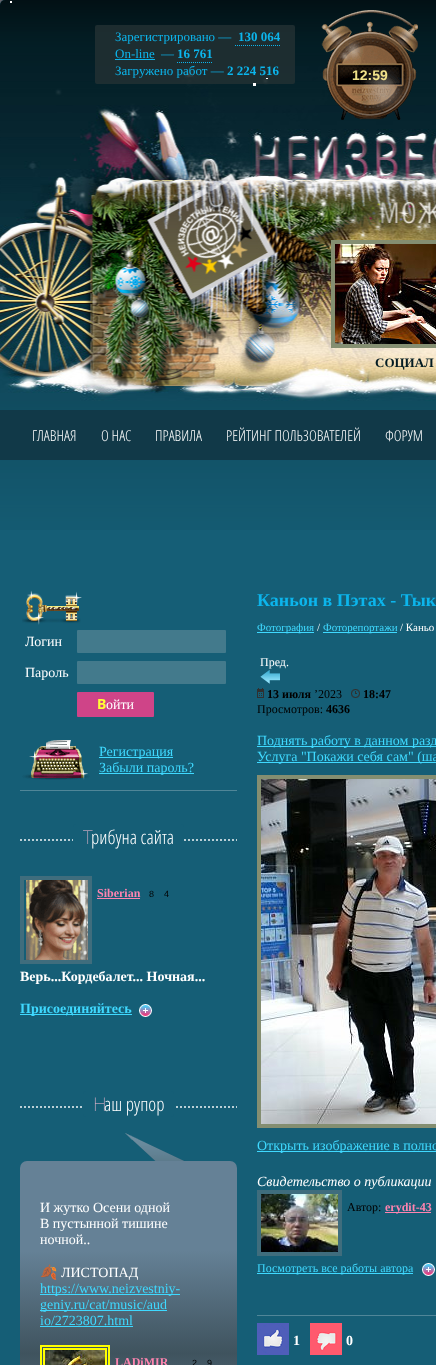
<svg xmlns="http://www.w3.org/2000/svg" width="436" height="1365">
	<defs>
		<linearGradient id="g1" gradientUnits="userSpaceOnUse" x1="128" y1="1161" x2="129" y2="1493"><stop offset="0.27" stop-color="#658196" /><stop offset="0.58" stop-color="#3F535E" /><stop offset="0.87" stop-color="#658196" /></linearGradient>
	</defs>
	<rect width="100%" height="100%" fill="#FFFFFF" />
	<image x="0" y="0" width="5" height="5" href="assets/img1.png" />
	<rect x="0" y="0" width="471" height="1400" rx="5" fill="#000000" fill-opacity="0.5" filter="blur(10px)" />
	<rect x="0" y="0" width="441" height="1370" rx="5" fill="#155E76" />
	<image x="0" y="0" width="436" height="530" href="assets/img2.png" />
	<image x="0" y="66" width="436" height="335" href="assets/img3.png" />
	<rect x="10" y="1" width="2" height="2" fill="#FFFFFF" />
	<rect x="95" y="25" width="200" height="59" rx="2" fill="#223032" fill-opacity="0.85" />
	<rect x="266" y="78" width="2" height="1" fill="#FFFFFF" />
	<rect x="253" y="83" width="3" height="3" fill="#FFFFFF" />
	<rect x="333" y="242" width="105" height="104" fill="none" stroke="#848E71" stroke-width="4" />
	<image x="335" y="244" width="101" height="100" href="assets/img5.png" />
	<rect x="377" y="271" width="1" height="1" fill="#FFFFFF" />
	<rect x="265" y="389" width="1" height="1" fill="#FFFFFF" />
	<text x="115" y="41" font-family="Liberation Serif" font-size="13" fill="#0CB5EC">Зарегистрировано —</text>
	<path d="M235 45.5H280" fill="none" stroke="#0CB5EC" stroke-dasharray="1 1" />
	<text x="238" y="41" font-family="Liberation Serif" font-size="13" font-weight="700" fill="#0CB5EC">130 064</text>
	<text x="115" y="58" font-family="Liberation Serif" font-size="13" fill="#0CB5EC">On-line</text>
	<rect x="115" y="59" width="40" height="1" fill="#0CB5EC" />
	<text x="161" y="58" font-family="Liberation Serif" font-size="13" fill="#0CB5EC">—</text>
	<path d="M177 62.5H213" fill="none" stroke="#0CB5EC" stroke-dasharray="1 1" />
	<text x="177" y="58" font-family="Liberation Serif" font-size="13" font-weight="700" fill="#0CB5EC">16 761</text>
	<text x="115" y="75" font-family="Liberation Serif" font-size="13" fill="#0CB5EC">Загружено работ —</text>
	<text x="227" y="75" font-family="Liberation Serif" font-size="13" font-weight="700" fill="#0CB5EC">2 224 516</text>
	<image x="321" y="10" width="97" height="110" href="assets/img4.png" />
	<text x="352" y="80" font-family="Liberation Sans" font-size="14" font-weight="700" fill="#F2E38A">12:59</text>
	<text x="375" y="367" font-family="Liberation Serif" font-size="13" font-weight="700" fill="#031C23">СОЦИАЛ</text>
	<rect x="0" y="410" width="436" height="50" fill="#113948" />
	<g font-family="Open Sans Condensed" font-size="15" font-weight="300" fill="#FFFFFF">
		<text x="32" y="441">ГЛАВНАЯ</text>
		<text x="101" y="441">О НАС</text>
		<text x="155" y="441">ПРАВИЛА</text>
		<text x="226" y="441">РЕЙТИНГ ПОЛЬЗОВАТЕЛЕЙ</text>
		<text x="385" y="441">ФОРУМ</text>
	</g>
	<image x="22" y="590" width="60" height="35" href="assets/img6.png" />
	<text x="25" y="646" font-family="Liberation Serif" font-size="14" fill="#FFFFFF">Логин</text>
	<rect x="77" y="630" width="149" height="23" rx="1" fill="#437A8C" />
	<text x="25" y="677" font-family="Liberation Serif" font-size="14" fill="#FFFFFF">Пароль</text>
	<rect x="77" y="661" width="149" height="23" rx="1" fill="#437A8C" />
	<rect x="77" y="692" width="77" height="25" rx="1" fill="#CF4488" />
	<text x="97" y="709" font-family="Noto Sans" font-size="14" font-weight="700" fill="#FFFF33">В</text>
	<text x="106" y="709" font-family="Liberation Serif" font-size="14" fill="#FFFFFF">ойти</text>
	<image x="22" y="740" width="68" height="40" href="assets/img7.png" />
	<rect x="99" y="757" width="74" height="1" fill="#3FD9FF" />
	<text x="99" y="756" font-family="Liberation Serif" font-size="14" fill="#3FD9FF">Регистрация</text>
	<rect x="99" y="773" width="95" height="1" fill="#3FD9FF" />
	<text x="99" y="772" font-family="Liberation Serif" font-size="14" fill="#3FD9FF">Забыли пароль?</text>
	<rect x="20" y="790" width="217" height="1" fill="#508698" />
	<path d="M20 840H237" fill="none" stroke="#B9CFD6" stroke-width="2" stroke-dasharray="2 2" />
	<rect x="73" y="824" width="111" height="26" rx="3" fill="#155E76" />
	<text x="83" y="844" font-family="Noto Sans" font-size="19" font-weight="100" fill="#FCBED4">Т</text>
	<text x="91" y="844" font-family="Open Sans Condensed" font-size="19" font-weight="300" fill="#FFFFFF">рибуна сайта</text>
	<rect x="22" y="878" width="68" height="84" fill="none" stroke="#3F6D7D" stroke-width="4" />
	<image x="26" y="880" width="62" height="80" href="assets/img8.png" />
	<text x="97" y="897" font-family="Liberation Serif" font-size="12" font-weight="700" fill="#FF84B0">Siberian</text>
	<rect x="97" y="898" width="43" height="1" fill="#FF84B0" />
	<g font-family="Liberation Sans" font-size="9" fill="#000000">
		<text x="149" y="897">8</text>
		<text x="164" y="897">4</text>
	</g>
	<text x="20" y="981" font-family="Liberation Serif" font-size="14" font-weight="700" fill="#FFFFFF">Верь...Кордебалет... Ночная...</text>
	<rect x="20" y="1014" width="112" height="1" fill="#3FD9FF" />
	<text x="20" y="1013" font-family="Liberation Serif" font-size="14" font-weight="700" fill="#3FD9FF">Присоединяйтесь</text>
	<image x="139" y="1004" width="13" height="13" href="assets/img9.png" />
	<path d="M20 1107H237" fill="none" stroke="#B9CFD6" stroke-width="2" stroke-dasharray="2 2" />
	<rect x="83" y="1091" width="91" height="26" rx="3" fill="#155E76" />
	<text x="93" y="1111" font-family="Noto Sans" font-size="19" font-weight="100" fill="#FCBED4">Н</text>
	<text x="104" y="1111" font-family="Open Sans Condensed" font-size="19" font-weight="300" fill="#FFFFFF">аш рупор</text>
	<image x="125" y="1133" width="59" height="28" href="assets/img10.png" />
	<rect x="20" y="1161" width="217" height="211" rx="7" fill="url(#g1)" />
	<g font-family="Liberation Serif" font-size="14" fill="#FFFFFF">
		<text x="40" y="1212">И жутко Осени одной</text>
		<text x="40" y="1228">В пустынной тишине</text>
		<text x="40" y="1244">ночной..</text>
	</g>
	<text x="40" y="1277" font-family="Noto Color Emoji" font-size="14" fill="#FFFFFF">🍂</text>
	<text x="61" y="1277" font-family="Liberation Serif" font-size="14" fill="#FFFFFF">ЛИСТОПАД</text>
	<rect x="40" y="1294" width="140" height="1" fill="#3FD9FF" />
	<text x="40" y="1293" font-family="Liberation Serif" font-size="14" fill="#3FD9FF">https://www.neizvestniy-</text>
	<rect x="40" y="1310" width="127" height="1" fill="#3FD9FF" />
	<g font-family="Liberation Serif" font-size="14" fill="#3FD9FF">
		<text x="40" y="1309">geniy.ru/cat/music/aud</text>
		<text x="40" y="1325">io/2723807.html</text>
	</g>
	<rect x="40" y="1326" width="93" height="1" fill="#3FD9FF" />
	<rect x="41" y="1346" width="68" height="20" fill="none" stroke="#FFFF00" stroke-width="2" />
	<rect x="44" y="1349" width="62" height="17" fill="none" stroke="#FFFF00" stroke-width="2" />
	<image x="45" y="1350" width="60" height="15" href="assets/img11.png" />
	<text x="115" y="1366" font-family="Liberation Serif" font-size="12" font-weight="700" fill="#FF84B0">LADiMIR</text>
	<g font-family="Liberation Sans" font-size="9" fill="#000000">
		<text x="192" y="1366">2</text>
		<text x="207" y="1366">9</text>
	</g>
	<text x="257" y="606" font-family="Liberation Serif" font-size="18" font-weight="700" fill="#0CB5EC">Каньон в Пэтах - Тык</text>
	<rect x="257" y="632" width="57" height="1" fill="#3FD9FF" />
	<text x="257" y="631" font-family="Liberation Serif" font-size="11" fill="#3FD9FF">Фотография</text>
	<text x="317" y="631" font-family="Liberation Serif" font-size="11" fill="#FFFFFF">/</text>
	<rect x="323" y="632" width="74" height="1" fill="#3FD9FF" />
	<text x="323" y="631" font-family="Liberation Serif" font-size="11" fill="#3FD9FF">Фоторепортажи</text>
	<text x="400" y="631" font-family="Liberation Serif" font-size="11" fill="#FFFFFF">/ Каньо</text>
	<text x="260" y="666" font-family="Liberation Serif" font-size="12" fill="#FFFFFF">Пред.</text>
	<image x="260" y="669" width="20" height="15" href="assets/img12.png" />
	<image x="257" y="688" width="7" height="10" href="assets/img13.png" />
	<text x="267" y="698" font-family="Liberation Serif" font-size="12" font-weight="700" fill="#000000">13 июля</text>
	<text x="314" y="698" font-family="Liberation Serif" font-size="12" fill="#000000">’2023</text>
	<image x="351" y="689" width="9" height="9" href="assets/img14.png" />
	<text x="363" y="698" font-family="Liberation Serif" font-size="12" font-weight="700" fill="#000000">18:47</text>
	<text x="257" y="713" font-family="Liberation Serif" font-size="12" fill="#000000">Просмотров:</text>
	<text x="326" y="713" font-family="Liberation Serif" font-size="12" font-weight="700" fill="#000000">4636</text>
	<rect x="257" y="746" width="179" height="1" fill="#3FD9FF" />
	<text x="257" y="745" font-family="Liberation Serif" font-size="14" fill="#3FD9FF">Поднять работу в данном разд</text>
	<rect x="257" y="762" width="179" height="1" fill="#3FD9FF" />
	<text x="257" y="761" font-family="Liberation Serif" font-size="14" fill="#3FD9FF">Услуга "Покажи себя сам" (ша</text>
	<rect x="259" y="777" width="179" height="349" fill="none" stroke="#848E71" stroke-width="4" />
	<image x="261" y="779" width="175" height="345" href="assets/img15.png" />
	<rect x="257" y="1151" width="179" height="1" fill="#3FD9FF" />
	<text x="257" y="1150" font-family="Liberation Serif" font-size="14" fill="#3FD9FF">Открыть изображение в полно</text>
	<text x="257" y="1186" font-family="Liberation Serif" font-size="14" font-style="italic" fill="#FFFFFF">Свидетельство о публикации</text>
	<rect x="259" y="1192" width="81" height="62" fill="none" stroke="#3F6D7D" stroke-width="4" />
	<image x="261" y="1194" width="77" height="58" href="assets/img16.png" />
	<text x="347" y="1211" font-family="Liberation Serif" font-size="12" fill="#000000">Автор:</text>
	<rect x="385" y="1212" width="46" height="1" fill="#FF84B0" />
	<text x="385" y="1211" font-family="Liberation Serif" font-size="12" font-weight="700" fill="#FF84B0">erydit-43</text>
	<rect x="257" y="1273" width="156" height="1" fill="#3FD9FF" />
	<text x="257" y="1272" font-family="Liberation Serif" font-size="12" fill="#3FD9FF">Посмотреть все работы автора</text>
	<image x="422" y="1263" width="13" height="13" href="assets/img9.png" />
	<rect x="257" y="1315" width="179" height="1" fill="#508698" />
	<image x="257" y="1323" width="32" height="32" href="assets/img17.png" />
	<text x="293" y="1345" font-family="Liberation Serif" font-size="14" font-weight="700" fill="#FFFFFF">1</text>
	<image x="310" y="1323" width="32" height="32" href="assets/img18.png" />
	<text x="346" y="1345" font-family="Liberation Serif" font-size="14" font-weight="700" fill="#FFFFFF">0</text>
</svg>
